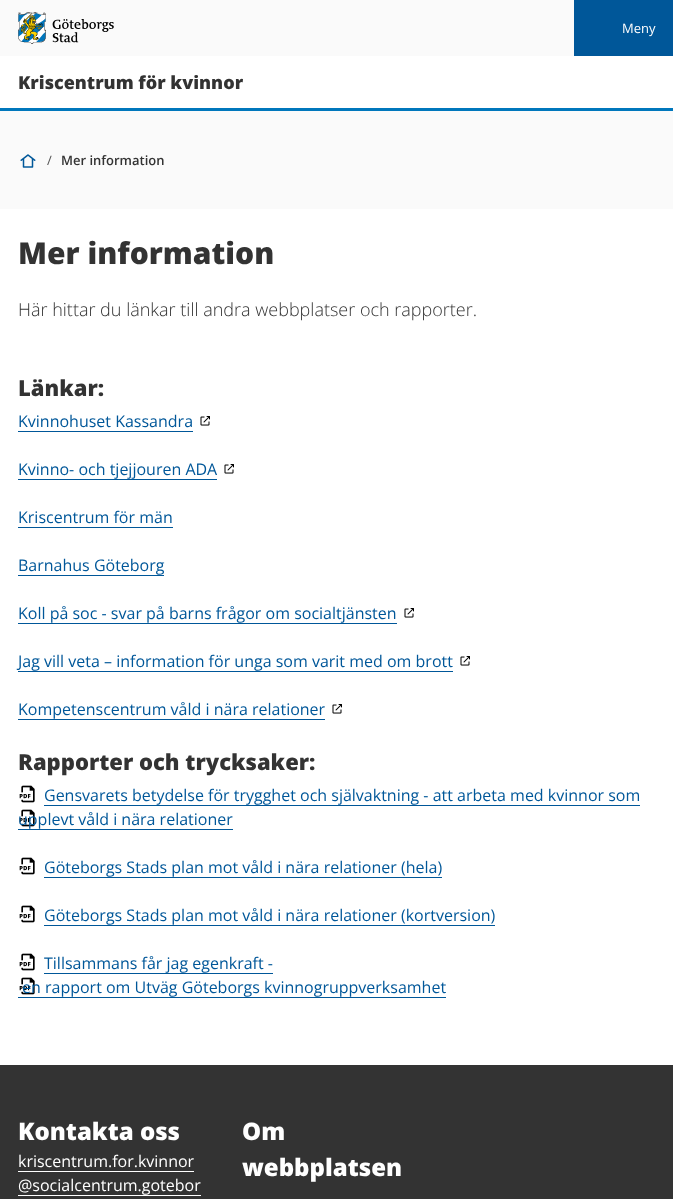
<svg xmlns="http://www.w3.org/2000/svg" width="673" height="1199">
	<rect width="100%" height="100%" fill="#FFFFFF" />
	<rect x="0" y="108" width="673" height="3" fill="#0077BC" />
	<rect x="574" y="0" width="99" height="56" fill="#005799" />
	<text x="622" y="33" font-family="Open Sans" font-size="13" fill="#FFFFFF">Meny</text>
	<rect x="0" y="0" width="574" height="56" fill="#FAFAFA" />
	<image x="18" y="12" width="96" height="32" href="assets/img1.png" />
	<text x="18" y="89" font-family="Open Sans" font-size="18" font-weight="800" fill="#333333">Kriscentrum för kvinnor</text>
	<rect x="0" y="111" width="673" height="98" fill="#FAFAFA" />
	<image x="20" y="154" width="16" height="14" href="assets/img2.png" />
	<text x="47" y="165" font-family="Open Sans" font-size="13" fill="#555555">/</text>
	<text x="61" y="165" font-family="Open Sans" font-size="13" font-weight="600" fill="#333333">Mer information</text>
	<text x="18" y="264" font-family="Open Sans" font-size="30" font-weight="800" fill="#333333">Mer information</text>
	<text x="18" y="316" font-family="Open Sans" font-size="18" font-weight="300" fill="#333333">Här hittar du länkar till andra webbplatser och rapporter.</text>
	<text x="18" y="396" font-family="Open Sans" font-size="22" font-weight="800" fill="#333333">Länkar:</text>
	<text x="18" y="427" font-family="Open Sans" font-size="16" fill="#005799">Kvinnohuset Kassandra</text>
	<rect x="18" y="431" width="175" height="1" fill="#005799" />
	<image x="200" y="416" width="10" height="10" href="assets/img3.png" />
	<text x="18" y="475" font-family="Open Sans" font-size="16" fill="#005799">Kvinno- och tjejjouren ADA</text>
	<rect x="18" y="479" width="199" height="1" fill="#005799" />
	<image x="224" y="464" width="10" height="10" href="assets/img3.png" />
	<text x="18" y="523" font-family="Open Sans" font-size="16" fill="#005799">Kriscentrum för män</text>
	<rect x="18" y="527" width="155" height="1" fill="#005799" />
	<text x="18" y="571" font-family="Open Sans" font-size="16" fill="#005799">Barnahus Göteborg</text>
	<rect x="18" y="575" width="146" height="1" fill="#005799" />
	<text x="18" y="619" font-family="Open Sans" font-size="16" fill="#005799">Koll på soc - svar på barns frågor om socialtjänsten</text>
	<rect x="18" y="623" width="379" height="1" fill="#005799" />
	<image x="404" y="608" width="10" height="10" href="assets/img3.png" />
	<text x="18" y="667" font-family="Open Sans" font-size="16" fill="#005799">Jag vill veta – information för unga som varit med om brott</text>
	<rect x="18" y="671" width="435" height="1" fill="#005799" />
	<image x="460" y="656" width="10" height="10" href="assets/img3.png" />
	<text x="18" y="715" font-family="Open Sans" font-size="16" fill="#005799">Kompetenscentrum våld i nära relationer</text>
	<rect x="18" y="719" width="307" height="1" fill="#005799" />
	<image x="332" y="704" width="10" height="10" href="assets/img3.png" />
	<text x="18" y="770" font-family="Open Sans" font-size="22" font-weight="800" fill="#333333">Rapporter och trycksaker:</text>
	<image x="19" y="785" width="16" height="42" href="assets/img4.png" />
	<text x="44" y="801" font-family="Open Sans" font-size="16" fill="#005799">Gensvarets betydelse för trygghet och självaktning - att arbeta med kvinnor som</text>
	<rect x="44" y="805" width="596" height="1" fill="#005799" />
	<text x="18" y="825" font-family="Open Sans" font-size="16" fill="#005799">upplevt våld i nära relationer</text>
	<rect x="18" y="829" width="215" height="1" fill="#005799" />
	<image x="19" y="857" width="16" height="18" href="assets/img5.png" />
	<text x="44" y="873" font-family="Open Sans" font-size="16" fill="#005799">Göteborgs Stads plan mot våld i nära relationer (hela)</text>
	<rect x="44" y="877" width="398" height="1" fill="#005799" />
	<image x="19" y="905" width="16" height="18" href="assets/img5.png" />
	<text x="44" y="921" font-family="Open Sans" font-size="16" fill="#005799">Göteborgs Stads plan mot våld i nära relationer (kortversion)</text>
	<rect x="44" y="925" width="451" height="1" fill="#005799" />
	<image x="19" y="953" width="16" height="42" href="assets/img4.png" />
	<text x="44" y="969" font-family="Open Sans" font-size="16" fill="#005799">Tillsammans får jag egenkraft -</text>
	<rect x="44" y="973" width="229" height="1" fill="#005799" />
	<text x="22" y="993" font-family="Open Sans" font-size="16" fill="#005799">en rapport om Utväg Göteborgs kvinnogruppverksamhet</text>
	<rect x="18" y="997" width="428" height="1" fill="#005799" />
	<rect x="0" y="1065" width="673" height="134" fill="#333333" />
	<text x="18" y="1140" font-family="Open Sans" font-size="24" font-weight="800" fill="#FFFFFF">Kontakta oss</text>
	<text x="18" y="1167" font-family="Open Sans" font-size="16" fill="#FFFFFF">kriscentrum.for.kvinnor</text>
	<rect x="18" y="1171" width="176" height="1" fill="#FFFFFF" />
	<text x="18" y="1191" font-family="Open Sans" font-size="16" fill="#FFFFFF">@socialcentrum.gotebor</text>
	<rect x="18" y="1195" width="183" height="1" fill="#FFFFFF" />
	<g font-family="Open Sans" font-size="24" font-weight="800" fill="#FFFFFF">
		<text x="242" y="1140">Om</text>
		<text x="242" y="1176">webbplatsen</text>
	</g>
</svg>
